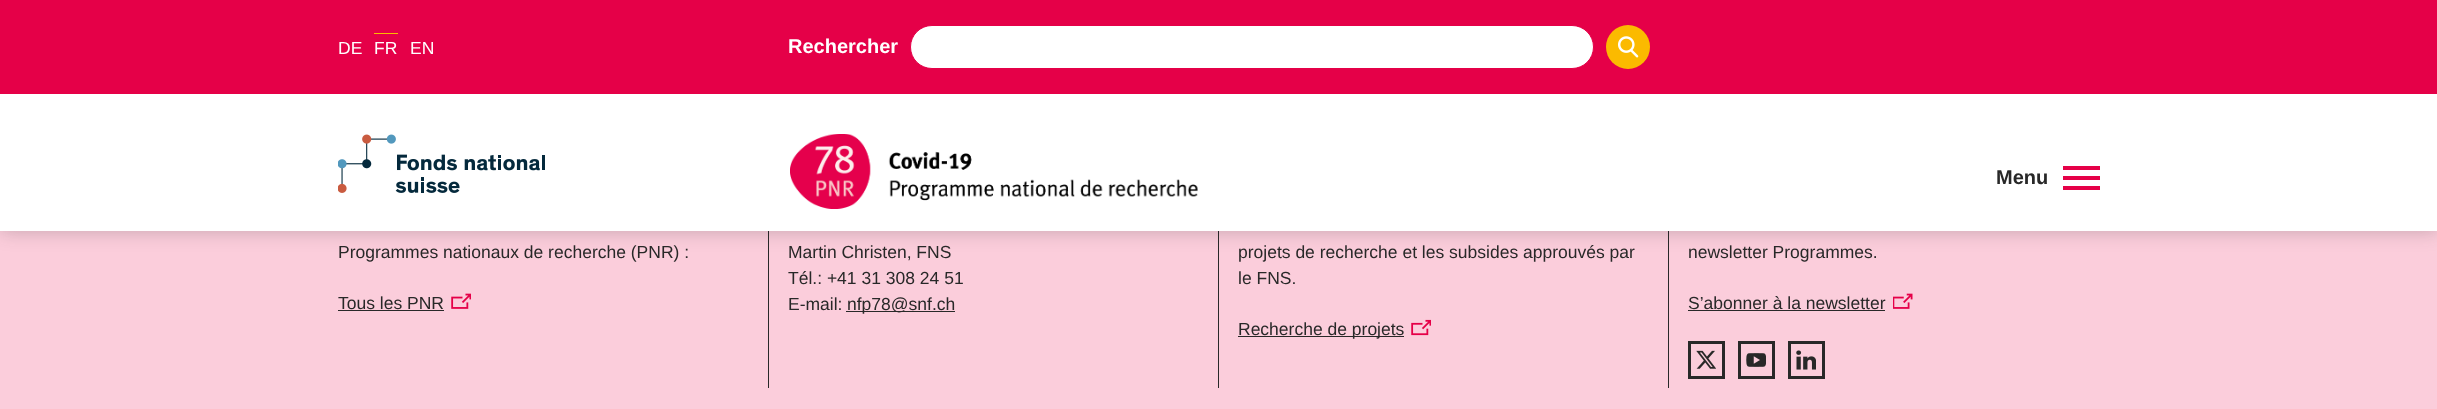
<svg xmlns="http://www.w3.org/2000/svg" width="2437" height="409">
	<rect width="100%" height="100%" fill="#FBCDDB" />
	<rect x="768" y="231" width="1" height="157" fill="#282828" />
	<rect x="1218" y="231" width="1" height="157" fill="#282828" />
	<rect x="1668" y="231" width="1" height="157" fill="#282828" />
	<rect x="0" y="0" width="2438" height="231" fill="#282828" fill-opacity="0.25" filter="blur(9.5px)" />
	<rect x="0" y="0" width="2437" height="94" fill="#E50048" />
	<text x="338" y="54" font-family="Liberation Sans" font-size="17.5" fill="#FFFFFF">DE</text>
	<rect x="374" y="33" width="24" height="1" fill="#FBBA00" />
	<g font-family="Liberation Sans" font-size="17.5" fill="#FFFFFF">
		<text x="374" y="54">FR</text>
		<text x="410" y="54">EN</text>
	</g>
	<text x="788" y="53" font-family="Liberation Sans" font-size="20" font-weight="700" fill="#FFFFFF">Rechercher</text>
	<rect x="910.5" y="25.5" width="683" height="43" rx="21.5" fill="#FFFFFF" stroke="#E50048" />
	<circle cx="1628" cy="47" r="22" fill="#FBBA00" />
	<image x="1618" y="36" width="21" height="22" href="assets/img1.png" />
	<rect x="0" y="94" width="2437" height="137" fill="#FFFFFF" />
	<image x="338" y="134" width="207" height="59" href="assets/img2.png" />
	<image x="790" y="134" width="408" height="75" href="assets/img3.png" />
	<text x="1996" y="184" font-family="Liberation Sans" font-size="20" font-weight="700" fill="#282828">Menu</text>
	<rect x="2063" y="176" width="37" height="4" fill="#E50048" />
	<rect x="2063" y="166" width="37" height="4" fill="#E50048" />
	<rect x="2063" y="186" width="37" height="4" fill="#E50048" />
	<g font-family="Liberation Sans" font-size="17.5" fill="#282828">
		<text x="338" y="258">Programmes nationaux de recherche (PNR) :</text>
		<text x="338" y="309">Tous les PNR</text>
	</g>
	<rect x="338" y="310" width="106" height="1" fill="#282828" />
	<image x="451" y="293" width="20" height="16" href="assets/img4.png" />
	<g font-family="Liberation Sans" font-size="17.5" fill="#282828">
		<text x="788" y="258">Martin Christen, FNS</text>
		<text x="788" y="284">Tél.: +41 31 308 24 51</text>
		<text x="788" y="310">E-mail:</text>
	</g>
	<rect x="846" y="311" width="109" height="1" fill="#282828" />
	<g font-family="Liberation Sans" font-size="17.5" fill="#282828">
		<text x="847" y="310">nfp78@snf.ch</text>
		<text x="1238" y="258">projets de recherche et les subsides approuvés par</text>
		<text x="1238" y="284">le FNS.</text>
	</g>
	<rect x="1238" y="336" width="166" height="1" fill="#282828" />
	<text x="1238" y="335" font-family="Liberation Sans" font-size="17.5" fill="#282828">Recherche de projets</text>
	<image x="1411" y="319" width="20" height="17" href="assets/img5.png" />
	<g font-family="Liberation Sans" font-size="17.5" fill="#282828">
		<text x="1688" y="258">newsletter Programmes.</text>
		<text x="1688" y="309">S’abonner à la newsletter</text>
	</g>
	<rect x="1688" y="310" width="197" height="1" fill="#282828" />
	<image x="1893" y="293" width="20" height="16" href="assets/img6.png" />
	<rect x="1689.5" y="342.5" width="34" height="35" fill="none" stroke="#282828" stroke-width="3" />
	<image x="1696" y="350" width="20" height="19" href="assets/img7.png" />
	<rect x="1739.5" y="342.5" width="34" height="35" fill="none" stroke="#282828" stroke-width="3" />
	<image x="1746" y="353" width="20" height="14" href="assets/img8.png" />
	<rect x="1789.5" y="342.5" width="34" height="35" fill="none" stroke="#282828" stroke-width="3" />
	<image x="1796" y="350" width="20" height="20" href="assets/img9.png" />
</svg>
